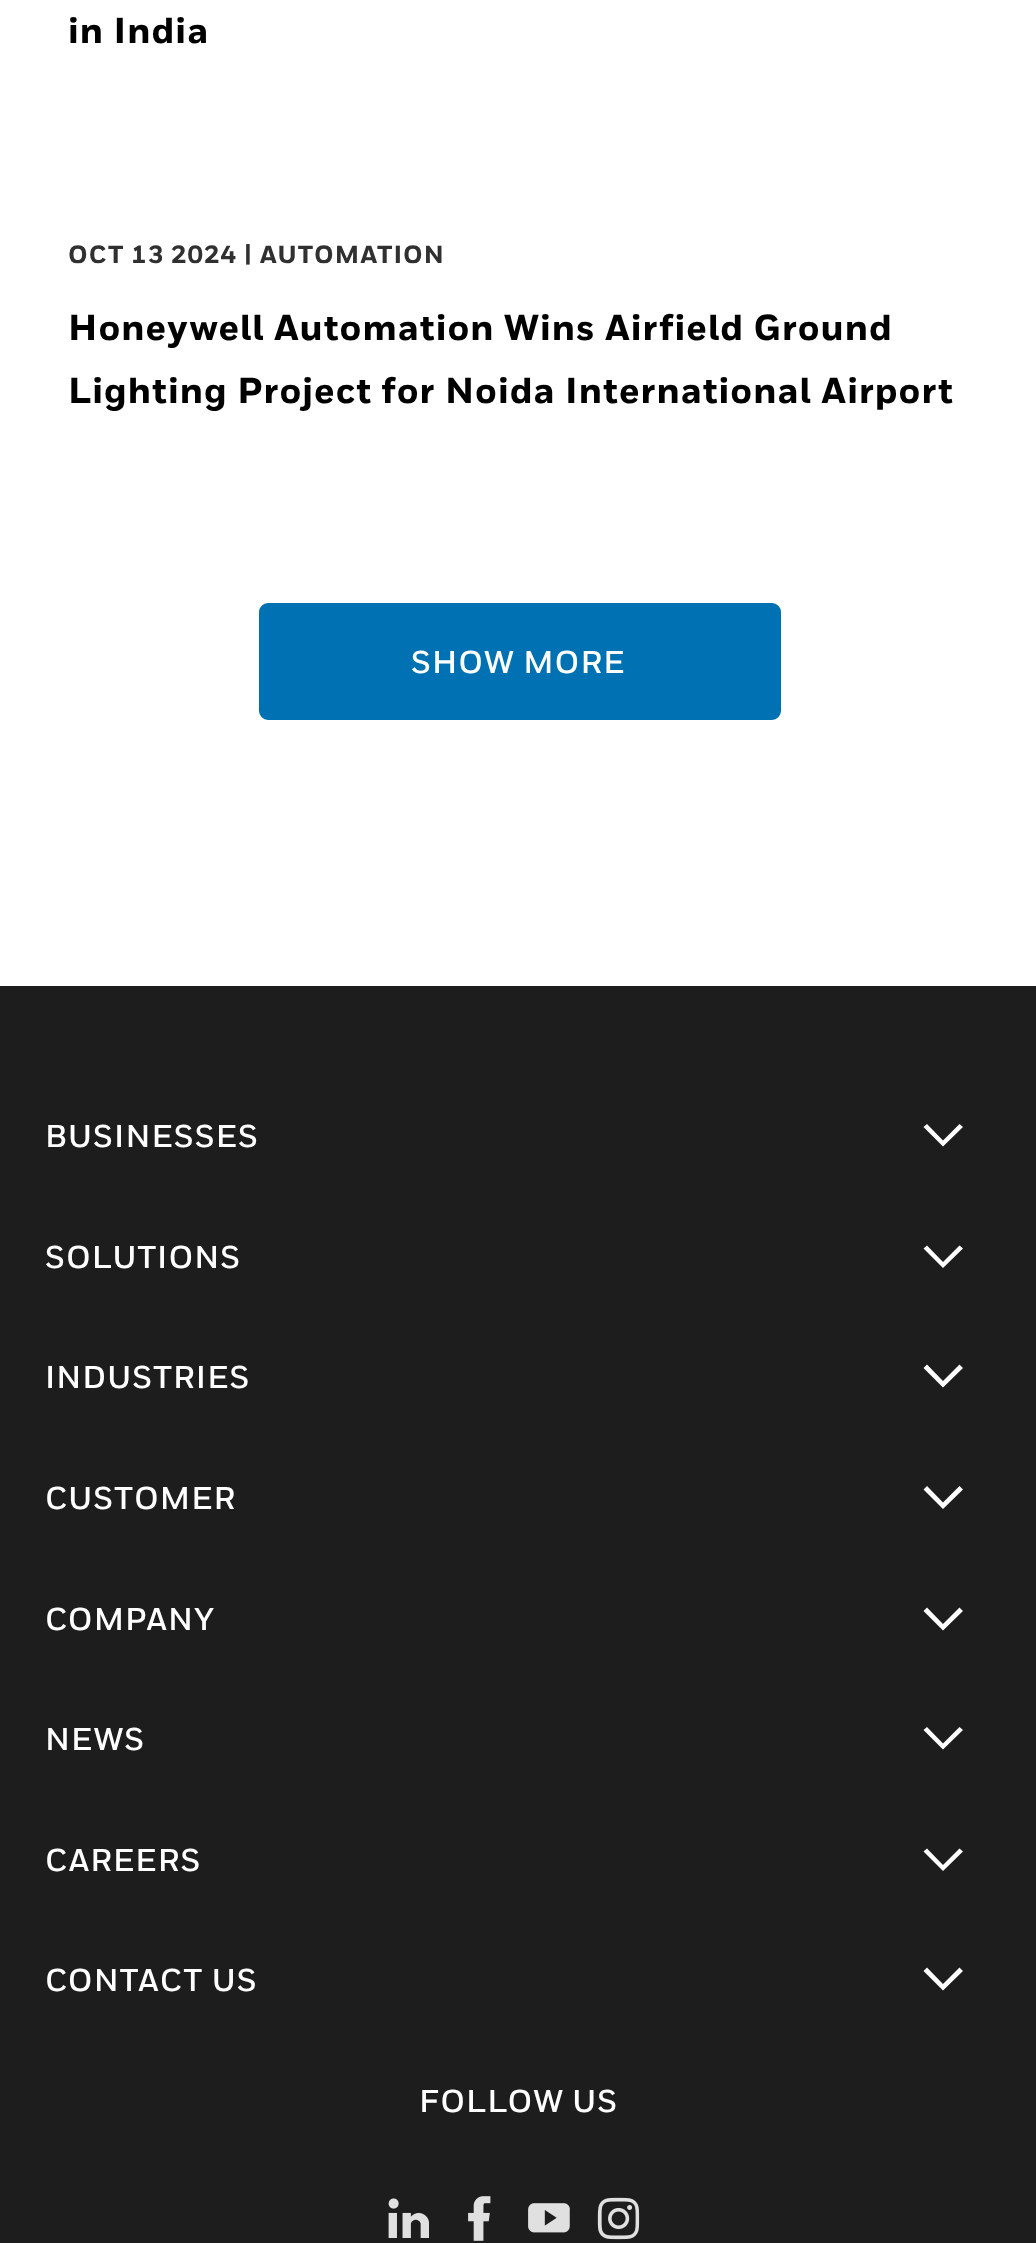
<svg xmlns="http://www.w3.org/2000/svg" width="1036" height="2243">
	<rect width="100%" height="100%" fill="#FFFFFF" />
	<text x="68" y="43" font-family="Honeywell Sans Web" font-size="36" font-weight="800" letter-spacing="1.05" fill="#000000">in India</text>
	<text x="68" y="263" font-family="Honeywell Sans Web" font-size="24.75" font-weight="800" letter-spacing="1.05" fill="#303030">OCT 13 2024 | AUTOMATION</text>
	<g font-family="Honeywell Sans Web" font-size="36" font-weight="800" letter-spacing="1.05" fill="#000000">
		<text x="68" y="340">Honeywell Automation Wins Airfield Ground</text>
		<text x="68" y="403">Lighting Project for Noida International Airport</text>
	</g>
	<rect x="261.5" y="605.5" width="517" height="112" rx="6.5" fill="#0071B3" stroke="#0071B3" stroke-width="5" />
	<text x="411" y="673" font-family="Honeywell Sans Web" font-size="31.5" font-weight="700" letter-spacing="1.1" fill="#FFFFFF">SHOW MORE</text>
	<rect x="0" y="986" width="1036" height="1257" fill="#1D1D1D" />
	<text x="45" y="1147" font-family="Honeywell Sans Web" font-size="31.5" font-weight="700" letter-spacing="1.1" fill="#FFFFFF">BUSINESSES</text>
	<path d="M959.5 1124L963 1127L943 1146.5L923.5 1127L927 1124L943 1140.5Z" fill="#FFFFFF" />
	<text x="45" y="1268" font-family="Honeywell Sans Web" font-size="31.5" font-weight="700" letter-spacing="1.1" fill="#FFFFFF">SOLUTIONS</text>
	<path d="M959.5 1245.5L963 1248.5L943 1268L923.5 1248.5L927 1245.5L943 1262Z" fill="#FFFFFF" />
	<text x="45" y="1388" font-family="Honeywell Sans Web" font-size="31.5" font-weight="700" letter-spacing="1.1" fill="#FFFFFF">INDUSTRIES</text>
	<path d="M959.5 1364.5L963 1368L943 1387.5L923.5 1368L927 1364.5L943 1381Z" fill="#FFFFFF" />
	<text x="45" y="1509" font-family="Honeywell Sans Web" font-size="31.5" font-weight="700" letter-spacing="1.1" fill="#FFFFFF">CUSTOMER</text>
	<path d="M959.5 1486L963 1489.5L943 1509L923.5 1489.5L927 1486L943 1502.5Z" fill="#FFFFFF" />
	<text x="45" y="1630" font-family="Honeywell Sans Web" font-size="31.5" font-weight="700" letter-spacing="1.1" fill="#FFFFFF">COMPANY</text>
	<path d="M959.5 1607.5L963 1611L943 1630.5L923.5 1611L927 1607.5L943 1624Z" fill="#FFFFFF" />
	<text x="45" y="1750" font-family="Honeywell Sans Web" font-size="31.5" font-weight="700" letter-spacing="1.1" fill="#FFFFFF">NEWS</text>
	<path d="M959.5 1727L963 1730L943 1749.5L923.5 1730L927 1727L943 1743.5Z" fill="#FFFFFF" />
	<text x="45" y="1871" font-family="Honeywell Sans Web" font-size="31.5" font-weight="700" letter-spacing="1.1" fill="#FFFFFF">CAREERS</text>
	<path d="M959.5 1848.5L963 1851.5L943 1871L923.5 1851.5L927 1848.5L943 1865Z" fill="#FFFFFF" />
	<text x="45" y="1991" font-family="Honeywell Sans Web" font-size="31.5" font-weight="700" letter-spacing="1.1" fill="#FFFFFF">CONTACT US</text>
	<path d="M959.5 1967.5L963 1971L943 1990.5L923.5 1971L927 1967.5L943 1984Z" fill="#FFFFFF" />
	<text x="419" y="2112" font-family="Honeywell Sans Web" font-size="31.5" font-weight="700" letter-spacing="1.1" fill="#FFFFFF">FOLLOW US</text>
	<image x="388" y="2198" width="41" height="40" href="assets/img1.png" />
	<image x="468" y="2196" width="23" height="45" href="assets/img2.png" />
	<image x="528" y="2203" width="42" height="30" href="assets/img3.png" />
	<image x="597" y="2197" width="43" height="43" href="assets/img4.png" />
</svg>
